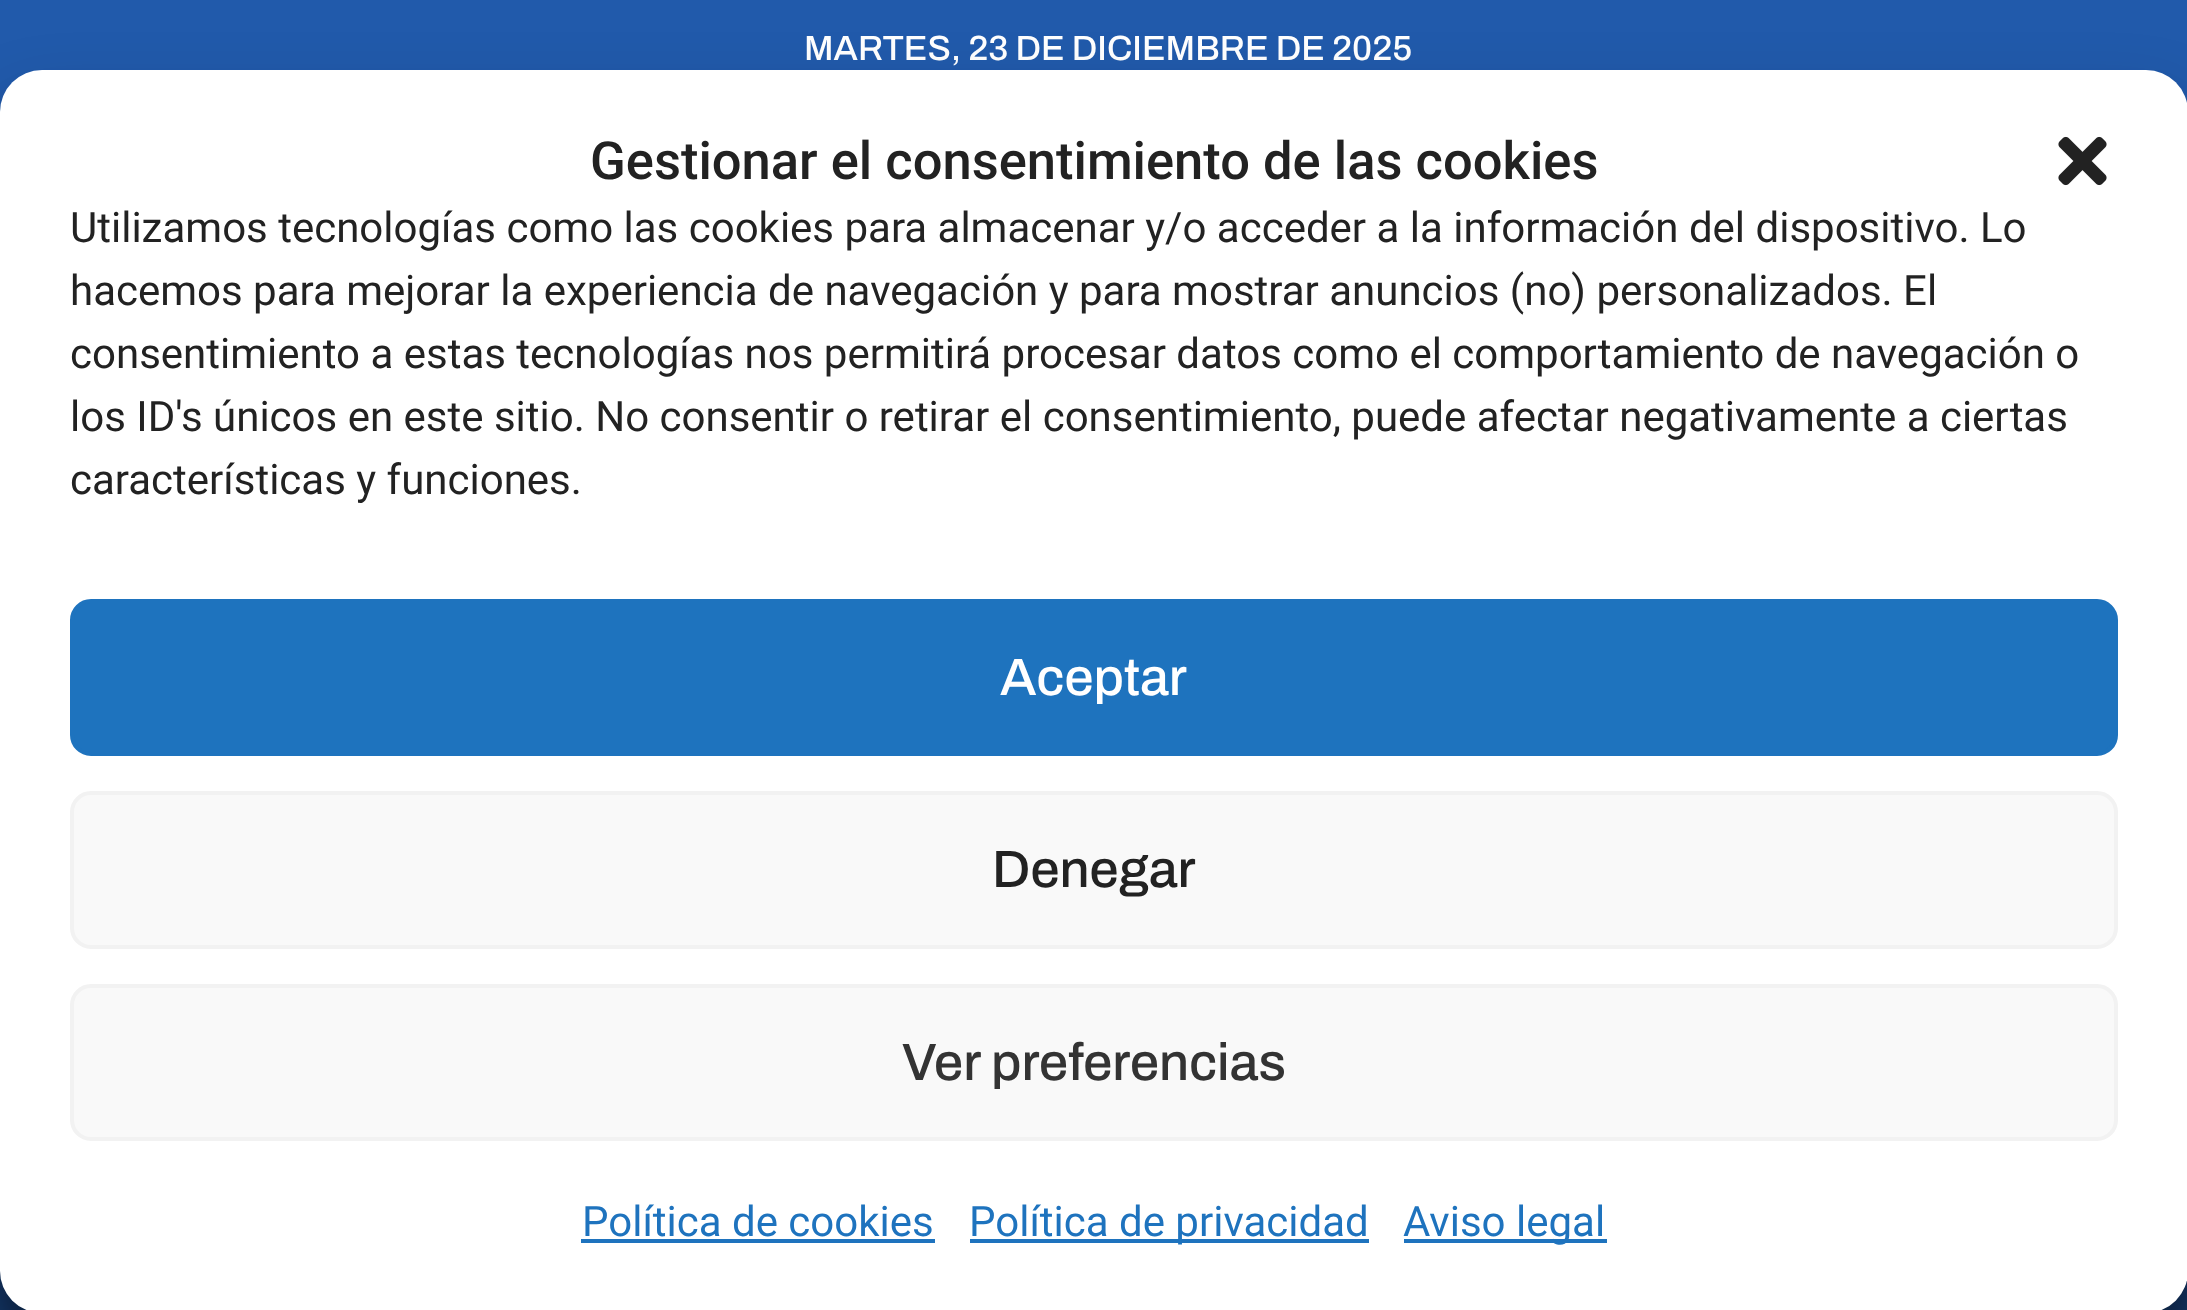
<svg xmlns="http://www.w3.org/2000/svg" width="2187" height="1310">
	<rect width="100%" height="100%" fill="#215AAB" />
	<text x="804" y="60" font-family="Archivo" font-size="35" font-weight="500" fill="#FFFFFF">MARTES, 23 DE DICIEMBRE DE 2025</text>
	<rect x="0" y="1271" width="2187" height="39" fill="#143666" />
	<rect x="0" y="91" width="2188" height="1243" rx="42" fill="#000000" fill-opacity="0.23" filter="blur(10.5px)" />
	<rect x="0" y="105" width="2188" height="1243" rx="42" fill="#000000" fill-opacity="0.19" filter="blur(35px)" />
	<rect x="0" y="70" width="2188" height="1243" rx="42" fill="#FFFFFF" />
	<text x="590" y="179" font-family="Roboto" font-size="52.5" font-weight="500" fill="#222222">Gestionar el consentimiento de las cookies</text>
	<image x="2058" y="136" width="49" height="50" href="assets/img1.png" />
	<g font-family="Roboto" font-size="42" fill="#222222">
		<text x="70" y="242">Utilizamos tecnologías como las cookies para almacenar y/o acceder a la información del dispositivo. Lo</text>
		<text x="70" y="305">hacemos para mejorar la experiencia de navegación y para mostrar anuncios (no) personalizados. El</text>
		<text x="70" y="368">consentimiento a estas tecnologías nos permitirá procesar datos como el comportamiento de navegación o</text>
		<text x="70" y="431">los ID's únicos en este sitio. No consentir o retirar el consentimiento, puede afectar negativamente a ciertas</text>
		<text x="70" y="494">características y funciones.</text>
	</g>
	<rect x="72" y="601" width="2044" height="153" rx="19" fill="#1E73BE" stroke="#1E73BE" stroke-width="4" />
	<text x="1000" y="695" font-family="Archivo" font-size="52.5" font-weight="500" fill="#FFFFFF">Aceptar</text>
	<rect x="72" y="793" width="2044" height="154" rx="19" fill="#F9F9F9" stroke="#F2F2F2" stroke-width="4" />
	<text x="992" y="887" font-family="Archivo" font-size="52.5" font-weight="500" fill="#222222">Denegar</text>
	<rect x="72" y="986" width="2044" height="153" rx="19" fill="#F9F9F9" stroke="#F2F2F2" stroke-width="4" />
	<text x="902" y="1080" font-family="Archivo" font-size="52.5" font-weight="500" fill="#333333">Ver preferencias</text>
	<text x="582" y="1236" font-family="Roboto" font-size="42" fill="#1E73BE">Política de cookies</text>
	<rect x="581" y="1239" width="354" height="4" fill="#1E73BE" />
	<rect x="970" y="1239" width="399" height="4" fill="#1E73BE" />
	<text x="969" y="1236" font-family="Roboto" font-size="42" fill="#1E73BE">Política de privacidad</text>
	<rect x="1404" y="1239" width="203" height="4" fill="#1E73BE" />
	<text x="1403" y="1236" font-family="Roboto" font-size="42" fill="#1E73BE">Aviso legal</text>
</svg>
